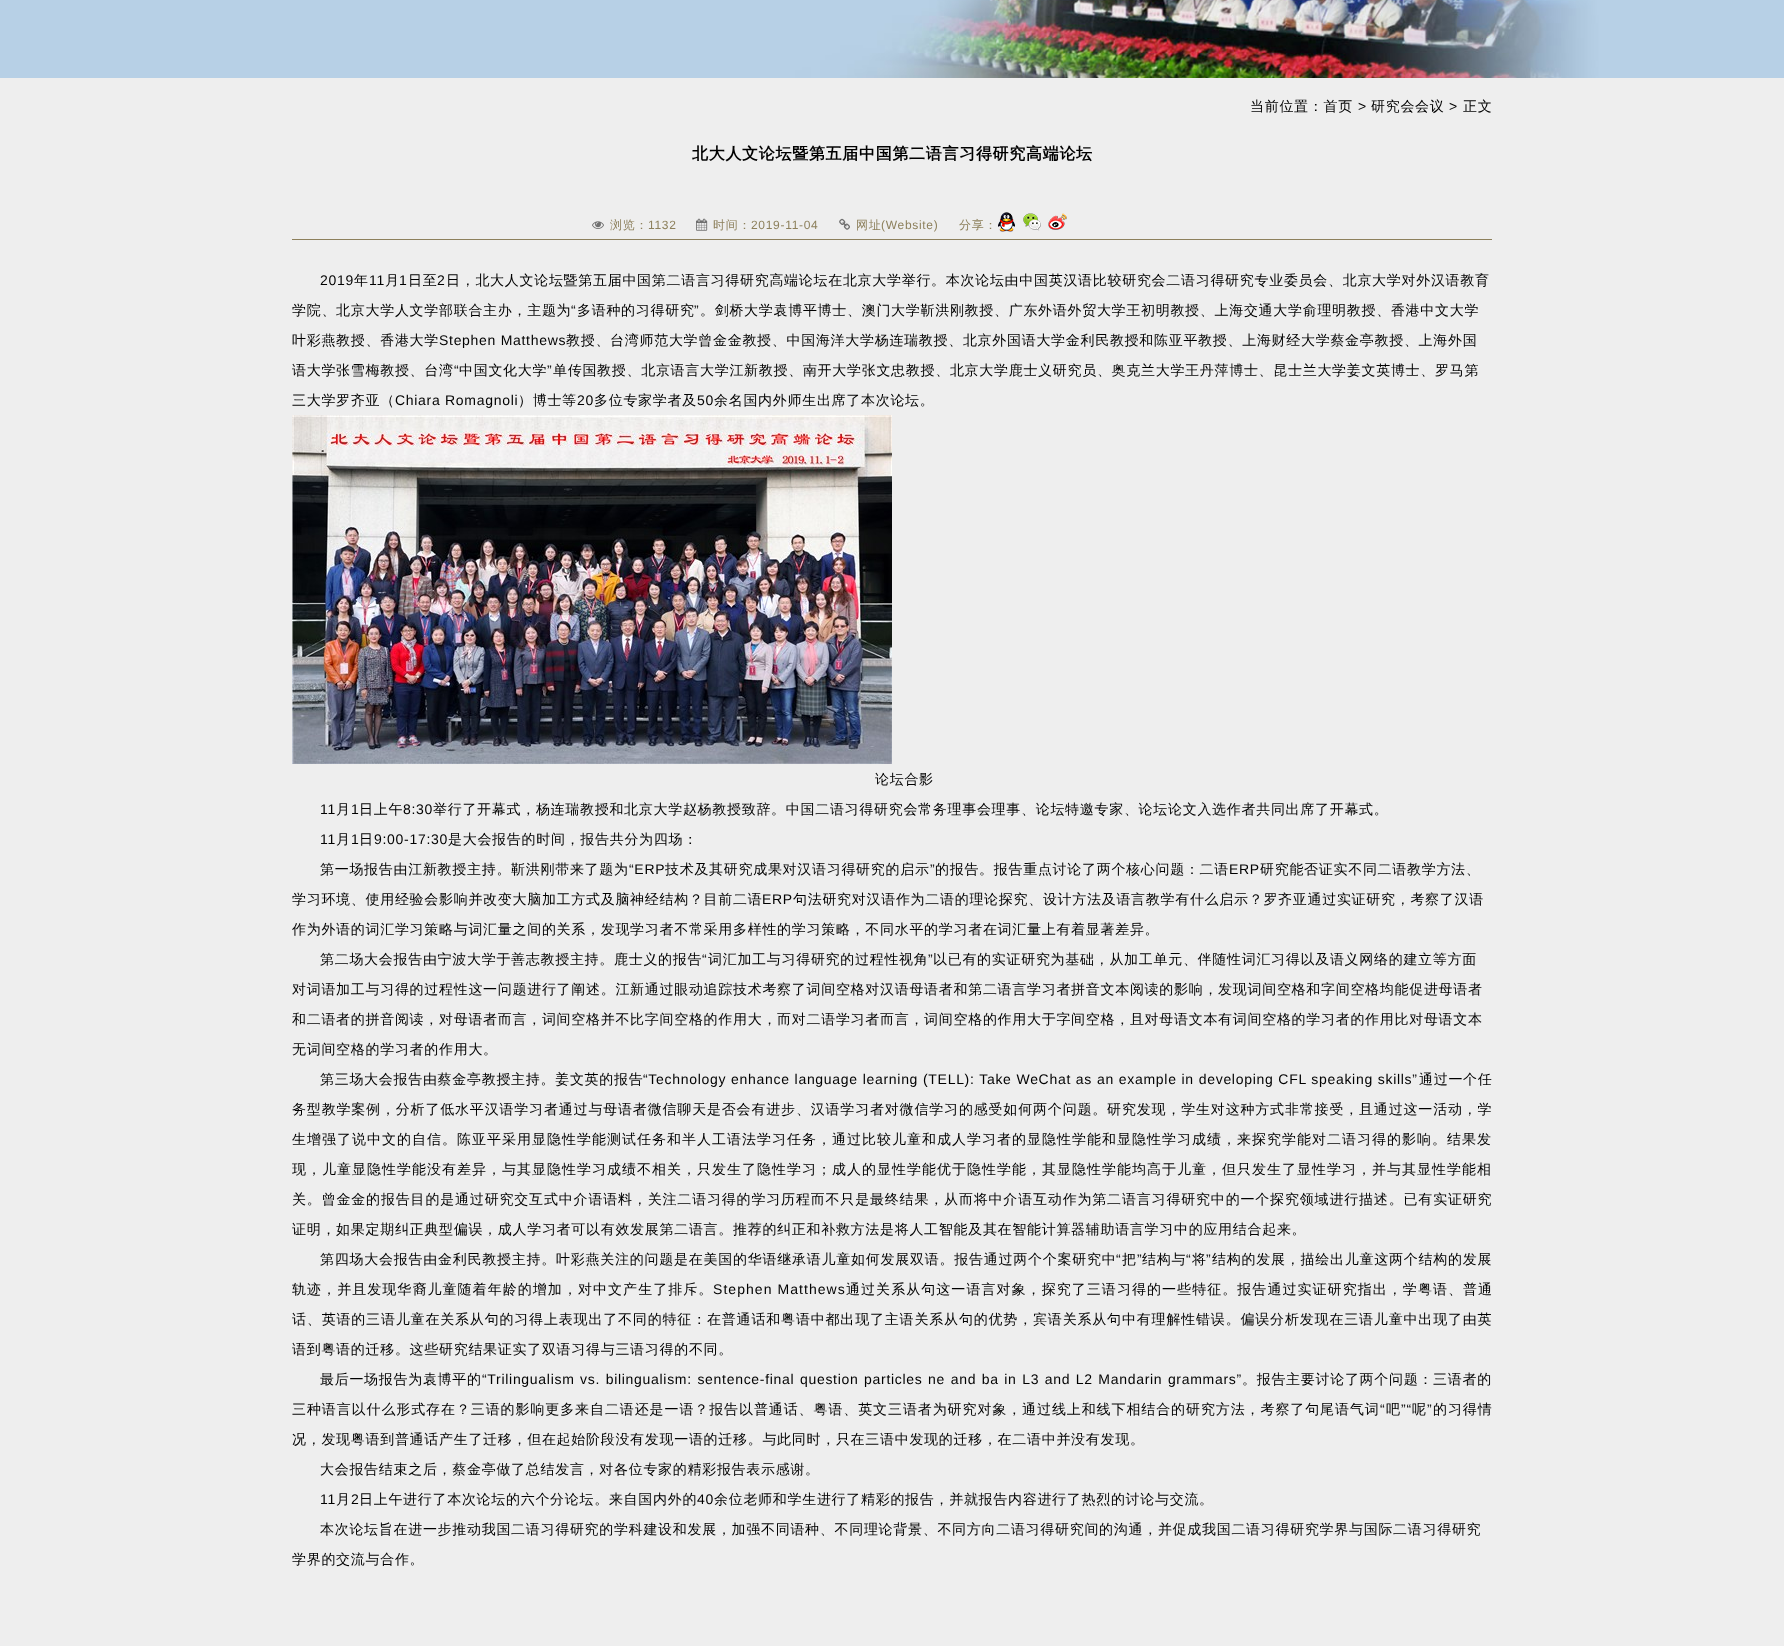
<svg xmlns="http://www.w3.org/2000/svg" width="1784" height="1646">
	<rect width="100%" height="100%" fill="#EEEEEE" />
	<image x="0" y="0" width="1784" height="78" href="assets/img1.png" />
	<text x="1250" y="111" font-family="WenQuanYi Zen Hei" font-size="14" font-weight="500" letter-spacing="0.7" fill="#000000">当前位置：首页</text>
	<text x="1358" y="111" font-family="Liberation Sans" font-size="14" letter-spacing="0.7" fill="#000000">&gt;</text>
	<text x="1371" y="111" font-family="WenQuanYi Zen Hei" font-size="14" font-weight="500" letter-spacing="0.7" fill="#000000">研究会会议</text>
	<text x="1449" y="111" font-family="Liberation Sans" font-size="14" letter-spacing="0.7" fill="#000000">&gt;</text>
	<text x="1463" y="111" font-family="WenQuanYi Zen Hei" font-size="14" font-weight="500" letter-spacing="0.7" fill="#000000">正文</text>
	<rect x="292" y="239" width="1200" height="1" fill="#8D805C" />
	<text x="692" y="159" font-family="WenQuanYi Zen Hei" font-size="16" font-weight="700" letter-spacing="0.7" fill="#000000">北大人文论坛暨第五届中国第二语言习得研究高端论坛</text>
	<image x="592" y="221" width="12" height="8" href="assets/img2.png" />
	<text x="610" y="229" font-family="WenQuanYi Zen Hei" font-size="12" font-weight="500" letter-spacing="0.7" fill="#8D805C">浏览：</text>
	<text x="648" y="229" font-family="Liberation Sans" font-size="12" letter-spacing="0.7" fill="#8D805C">1132</text>
	<image x="696" y="218" width="12" height="13" href="assets/img3.png" />
	<text x="713" y="229" font-family="WenQuanYi Zen Hei" font-size="12" font-weight="500" letter-spacing="0.7" fill="#8D805C">时间：</text>
	<text x="751" y="229" font-family="Liberation Sans" font-size="12" letter-spacing="0.7" fill="#8D805C">2019-11-04</text>
	<image x="839" y="218" width="11" height="12" href="assets/img4.png" />
	<text x="856" y="229" font-family="WenQuanYi Zen Hei" font-size="12" font-weight="500" letter-spacing="0.7" fill="#8D805C">网址</text>
	<text x="881" y="229" font-family="Liberation Sans" font-size="12" letter-spacing="0.7" fill="#8D805C">(Website)</text>
	<text x="959" y="229" font-family="WenQuanYi Zen Hei" font-size="12" font-weight="500" letter-spacing="0.7" fill="#8D805C">分享：</text>
	<image x="998" y="212" width="17" height="20" href="assets/img5.png" />
	<image x="1023" y="213" width="18" height="18" href="assets/img6.png" />
	<image x="1048" y="213" width="19" height="17" href="assets/img7.png" />
	<text x="320" y="285" font-family="Liberation Sans" font-size="14" letter-spacing="0.7" fill="#000000">2019</text>
	<text x="354" y="285" font-family="WenQuanYi Zen Hei" font-size="14" font-weight="500" letter-spacing="0.7" fill="#000000">年</text>
	<text x="369" y="285" font-family="Liberation Sans" font-size="14" letter-spacing="0.7" fill="#000000">11</text>
	<text x="385" y="285" font-family="WenQuanYi Zen Hei" font-size="14" font-weight="500" letter-spacing="0.7" fill="#000000">月</text>
	<text x="399" y="285" font-family="Liberation Sans" font-size="14" letter-spacing="0.7" fill="#000000">1</text>
	<text x="408" y="285" font-family="WenQuanYi Zen Hei" font-size="14" font-weight="500" letter-spacing="0.7" fill="#000000">日至</text>
	<text x="437" y="285" font-family="Liberation Sans" font-size="14" letter-spacing="0.7" fill="#000000">2</text>
	<g font-family="WenQuanYi Zen Hei" font-size="14" font-weight="500" letter-spacing="0.7" fill="#000000">
		<text x="446" y="285">日，北大人文论坛暨第五届中国第二语言习得研究高端论坛在北京大学举行。本次论坛由中国英汉语比较研究会二语习得研究专业委员会、北京大学对外汉语教育</text>
		<text x="292" y="315">学院、北京大学人文学部联合主办，主题为</text>
	</g>
	<text x="571" y="315" font-family="Liberation Sans" font-size="14" letter-spacing="0.7" fill="#000000">“</text>
	<text x="577" y="315" font-family="WenQuanYi Zen Hei" font-size="14" font-weight="500" letter-spacing="0.7" fill="#000000">多语种的习得研究</text>
	<text x="694" y="315" font-family="Liberation Sans" font-size="14" letter-spacing="0.7" fill="#000000">”</text>
	<g font-family="WenQuanYi Zen Hei" font-size="14" font-weight="500" letter-spacing="0.7" fill="#000000">
		<text x="700" y="315">。剑桥大学袁博平博士、澳门大学靳洪刚教授、广东外语外贸大学王初明教授、上海交通大学俞理明教授、香港中文大学</text>
		<text x="292" y="345">叶彩燕教授、香港大学</text>
	</g>
	<text x="439" y="345" font-family="Liberation Sans" font-size="14" letter-spacing="0.7" fill="#000000">Stephen Matthews</text>
	<g font-family="WenQuanYi Zen Hei" font-size="14" font-weight="500" letter-spacing="0.7" fill="#000000">
		<text x="566" y="345">教授、台湾师范大学曾金金教授、中国海洋大学杨连瑞教授、北京外国语大学金利民教授和陈亚平教授、上海财经大学蔡金亭教授、上海外国</text>
		<text x="292" y="375">语大学张雪梅教授、台湾</text>
	</g>
	<text x="454" y="375" font-family="Liberation Sans" font-size="14" letter-spacing="0.7" fill="#000000">“</text>
	<text x="459" y="375" font-family="WenQuanYi Zen Hei" font-size="14" font-weight="500" letter-spacing="0.7" fill="#000000">中国文化大学</text>
	<text x="547" y="375" font-family="Liberation Sans" font-size="14" letter-spacing="0.7" fill="#000000">”</text>
	<g font-family="WenQuanYi Zen Hei" font-size="14" font-weight="500" letter-spacing="0.7" fill="#000000">
		<text x="553" y="375">单传国教授、北京语言大学江新教授、南开大学张文忠教授、北京大学鹿士义研究员、奥克兰大学王丹萍博士、昆士兰大学姜文英博士、罗马第</text>
		<text x="292" y="405">三大学罗齐亚（</text>
	</g>
	<text x="395" y="405" font-family="Liberation Sans" font-size="14" letter-spacing="0.7" fill="#000000">Chiara Romagnoli</text>
	<text x="518" y="405" font-family="WenQuanYi Zen Hei" font-size="14" font-weight="500" letter-spacing="0.7" fill="#000000">）博士等</text>
	<text x="577" y="405" font-family="Liberation Sans" font-size="14" letter-spacing="0.7" fill="#000000">20</text>
	<text x="594" y="405" font-family="WenQuanYi Zen Hei" font-size="14" font-weight="500" letter-spacing="0.7" fill="#000000">多位专家学者及</text>
	<text x="697" y="405" font-family="Liberation Sans" font-size="14" letter-spacing="0.7" fill="#000000">50</text>
	<text x="714" y="405" font-family="WenQuanYi Zen Hei" font-size="14" font-weight="500" letter-spacing="0.7" fill="#000000">余名国内外师生出席了本次论坛。</text>
	<image x="292" y="415" width="600" height="349" href="assets/img8.png" />
	<text x="875" y="784" font-family="WenQuanYi Zen Hei" font-size="14" font-weight="500" letter-spacing="0.7" fill="#000000">论坛合影</text>
	<text x="320" y="814" font-family="Liberation Sans" font-size="14" letter-spacing="0.7" fill="#000000">11</text>
	<text x="336" y="814" font-family="WenQuanYi Zen Hei" font-size="14" font-weight="500" letter-spacing="0.7" fill="#000000">月</text>
	<text x="351" y="814" font-family="Liberation Sans" font-size="14" letter-spacing="0.7" fill="#000000">1</text>
	<text x="359" y="814" font-family="WenQuanYi Zen Hei" font-size="14" font-weight="500" letter-spacing="0.7" fill="#000000">日上午</text>
	<text x="403" y="814" font-family="Liberation Sans" font-size="14" letter-spacing="0.7" fill="#000000">8:30</text>
	<text x="433" y="814" font-family="WenQuanYi Zen Hei" font-size="14" font-weight="500" letter-spacing="0.7" fill="#000000">举行了开幕式，杨连瑞教授和北京大学赵杨教授致辞。中国二语习得研究会常务理事会理事、论坛特邀专家、论坛论文入选作者共同出席了开幕式。</text>
	<text x="320" y="844" font-family="Liberation Sans" font-size="14" letter-spacing="0.7" fill="#000000">11</text>
	<text x="336" y="844" font-family="WenQuanYi Zen Hei" font-size="14" font-weight="500" letter-spacing="0.7" fill="#000000">月</text>
	<text x="351" y="844" font-family="Liberation Sans" font-size="14" letter-spacing="0.7" fill="#000000">1</text>
	<text x="359" y="844" font-family="WenQuanYi Zen Hei" font-size="14" font-weight="500" letter-spacing="0.7" fill="#000000">日</text>
	<text x="374" y="844" font-family="Liberation Sans" font-size="14" letter-spacing="0.7" fill="#000000">9:00-17:30</text>
	<g font-family="WenQuanYi Zen Hei" font-size="14" font-weight="500" letter-spacing="0.7" fill="#000000">
		<text x="448" y="844">是大会报告的时间，报告共分为四场：</text>
		<text x="320" y="874">第一场报告由江新教授主持。靳洪刚带来了题为</text>
	</g>
	<text x="629" y="874" font-family="Liberation Sans" font-size="14" letter-spacing="0.7" fill="#000000">“ERP</text>
	<text x="665" y="874" font-family="WenQuanYi Zen Hei" font-size="14" font-weight="500" letter-spacing="0.7" fill="#000000">技术及其研究成果对汉语习得研究的启示</text>
	<text x="930" y="874" font-family="Liberation Sans" font-size="14" letter-spacing="0.7" fill="#000000">”</text>
	<text x="935" y="874" font-family="WenQuanYi Zen Hei" font-size="14" font-weight="500" letter-spacing="0.7" fill="#000000">的报告。报告重点讨论了两个核心问题：二语</text>
	<text x="1229" y="874" font-family="Liberation Sans" font-size="14" letter-spacing="0.7" fill="#000000">ERP</text>
	<g font-family="WenQuanYi Zen Hei" font-size="14" font-weight="500" letter-spacing="0.7" fill="#000000">
		<text x="1260" y="874">研究能否证实不同二语教学方法、</text>
		<text x="292" y="904">学习环境、使用经验会影响并改变大脑加工方式及脑神经结构？目前二语</text>
	</g>
	<text x="762" y="904" font-family="Liberation Sans" font-size="14" letter-spacing="0.7" fill="#000000">ERP</text>
	<g font-family="WenQuanYi Zen Hei" font-size="14" font-weight="500" letter-spacing="0.7" fill="#000000">
		<text x="793" y="904">句法研究对汉语作为二语的理论探究、设计方法及语言教学有什么启示？罗齐亚通过实证研究，考察了汉语</text>
		<text x="292" y="934">作为外语的词汇学习策略与词汇量之间的关系，发现学习者不常采用多样性的学习策略，不同水平的学习者在词汇量上有着显著差异。</text>
		<text x="320" y="964">第二场大会报告由宁波大学于善志教授主持。鹿士义的报告</text>
	</g>
	<text x="702" y="964" font-family="Liberation Sans" font-size="14" letter-spacing="0.7" fill="#000000">“</text>
	<text x="708" y="964" font-family="WenQuanYi Zen Hei" font-size="14" font-weight="500" letter-spacing="0.7" fill="#000000">词汇加工与习得研究的过程性视角</text>
	<text x="928" y="964" font-family="Liberation Sans" font-size="14" letter-spacing="0.7" fill="#000000">”</text>
	<g font-family="WenQuanYi Zen Hei" font-size="14" font-weight="500" letter-spacing="0.7" fill="#000000">
		<text x="933" y="964">以已有的实证研究为基础，从加工单元、伴随性词汇习得以及语义网络的建立等方面</text>
		<text x="292" y="994">对词语加工与习得的过程性这一问题进行了阐述。江新通过眼动追踪技术考察了词间空格对汉语母语者和第二语言学习者拼音文本阅读的影响，发现词间空格和字间空格均能促进母语者</text>
		<text x="292" y="1024">和二语者的拼音阅读，对母语者而言，词间空格并不比字间空格的作用大，而对二语学习者而言，词间空格的作用大于字间空格，且对母语文本有词间空格的学习者的作用比对母语文本</text>
		<text x="292" y="1054">无词间空格的学习者的作用大。</text>
		<text x="320" y="1084">第三场大会报告由蔡金亭教授主持。姜文英的报告</text>
	</g>
	<text x="643" y="1084" word-spacing="0.3" font-family="Liberation Sans" font-size="14" letter-spacing="0.7" fill="#000000">“Technology enhance language learning (TELL): Take WeChat as an example in developing CFL speaking skills”</text>
	<text x="1419" y="1084" font-family="WenQuanYi Zen Hei" font-size="14" font-weight="500" letter-spacing="0.7" fill="#000000">通过一个任</text>
	<text x="292" y="1114" font-family="WenQuanYi Zen Hei" font-size="14" font-weight="500" letter-spacing="0.82" fill="#000000">务型教学案例，分析了低水平汉语学习者通过与母语者微信聊天是否会有进步、汉语学习者对微信学习的感受如何两个问题。研究发现，学生对这种方式非常接受，且通过这一活动，学</text>
	<g font-family="WenQuanYi Zen Hei" font-size="14" font-weight="500" letter-spacing="1" fill="#000000">
		<text x="292" y="1144">生增强了说中文的自信。陈亚平采用显隐性学能测试任务和半人工语法学习任务，通过比较儿童和成人学习者的显隐性学能和显隐性学习成绩，来探究学能对二语习得的影响。结果发</text>
		<text x="292" y="1174">现，儿童显隐性学能没有差异，与其显隐性学习成绩不相关，只发生了隐性学习；成人的显性学能优于隐性学能，其显隐性学能均高于儿童，但只发生了显性学习，并与其显性学能相</text>
	</g>
	<text x="292" y="1204" font-family="WenQuanYi Zen Hei" font-size="14" font-weight="500" letter-spacing="0.82" fill="#000000">关。曾金金的报告目的是通过研究交互式中介语语料，关注二语习得的学习历程而不只是最终结果，从而将中介语互动作为第二语言习得研究中的一个探究领域进行描述。已有实证研究</text>
	<text x="292" y="1234" font-family="WenQuanYi Zen Hei" font-size="14" font-weight="500" letter-spacing="0.7" fill="#000000">证明，如果定期纠正典型偏误，成人学习者可以有效发展第二语言。推荐的纠正和补救方法是将人工智能及其在智能计算器辅助语言学习中的应用结合起来。</text>
	<text x="320" y="1264" font-family="WenQuanYi Zen Hei" font-size="14" font-weight="500" letter-spacing="0.75" fill="#000000">第四场大会报告由金利民教授主持。叶彩燕关注的问题是在美国的华语继承语儿童如何发展双语。报告通过两个个案研究中</text>
	<text x="1116" y="1264" font-family="Liberation Sans" font-size="14" letter-spacing="0.75" fill="#000000">“</text>
	<text x="1122" y="1264" font-family="WenQuanYi Zen Hei" font-size="14" font-weight="500" letter-spacing="0.75" fill="#000000">把</text>
	<text x="1137" y="1264" font-family="Liberation Sans" font-size="14" letter-spacing="0.75" fill="#000000">”</text>
	<text x="1142" y="1264" font-family="WenQuanYi Zen Hei" font-size="14" font-weight="500" letter-spacing="0.75" fill="#000000">结构与</text>
	<text x="1186" y="1264" font-family="Liberation Sans" font-size="14" letter-spacing="0.75" fill="#000000">“</text>
	<text x="1192" y="1264" font-family="WenQuanYi Zen Hei" font-size="14" font-weight="500" letter-spacing="0.75" fill="#000000">将</text>
	<text x="1206" y="1264" font-family="Liberation Sans" font-size="14" letter-spacing="0.75" fill="#000000">”</text>
	<text x="1212" y="1264" font-family="WenQuanYi Zen Hei" font-size="14" font-weight="500" letter-spacing="0.75" fill="#000000">结构的发展，描绘出儿童这两个结构的发展</text>
	<text x="292" y="1294" font-family="WenQuanYi Zen Hei" font-size="14" font-weight="500" letter-spacing="1.05" fill="#000000">轨迹，并且发现华裔儿童随着年龄的增加，对中文产生了排斥。</text>
	<text x="713" y="1294" font-family="Liberation Sans" font-size="14" letter-spacing="1.05" fill="#000000">Stephen Matthews</text>
	<text x="846" y="1294" font-family="WenQuanYi Zen Hei" font-size="14" font-weight="500" letter-spacing="1.05" fill="#000000">通过关系从句这一语言对象，探究了三语习得的一些特征。报告通过实证研究指出，学粤语、普通</text>
	<text x="292" y="1324" font-family="WenQuanYi Zen Hei" font-size="14" font-weight="500" letter-spacing="0.82" fill="#000000">话、英语的三语儿童在关系从句的习得上表现出了不同的特征：在普通话和粤语中都出现了主语关系从句的优势，宾语关系从句中有理解性错误。偏误分析发现在三语儿童中出现了由英</text>
	<g font-family="WenQuanYi Zen Hei" font-size="14" font-weight="500" letter-spacing="0.7" fill="#000000">
		<text x="292" y="1354">语到粤语的迁移。这些研究结果证实了双语习得与三语习得的不同。</text>
		<text x="320" y="1384">最后一场报告为袁博平的</text>
	</g>
	<text x="482" y="1384" word-spacing="1" font-family="Liberation Sans" font-size="14" letter-spacing="0.7" fill="#000000">“Trilingualism vs. bilingualism: sentence-final question particles ne and ba in L3 and L2 Mandarin grammars”</text>
	<text x="1242" y="1384" font-family="WenQuanYi Zen Hei" font-size="14" font-weight="500" letter-spacing="0.7" fill="#000000">。报告主要讨论了两个问题：三语者的</text>
	<text x="292" y="1414" font-family="WenQuanYi Zen Hei" font-size="14" font-weight="500" letter-spacing="0.9" fill="#000000">三种语言以什么形式存在？三语的影响更多来自二语还是一语？报告以普通话、粤语、英文三语者为研究对象，通过线上和线下相结合的研究方法，考察了句尾语气词</text>
	<text x="1380" y="1414" font-family="Liberation Sans" font-size="14" letter-spacing="0.9" fill="#000000">“</text>
	<text x="1386" y="1414" font-family="WenQuanYi Zen Hei" font-size="14" font-weight="500" letter-spacing="0.9" fill="#000000">吧</text>
	<text x="1401" y="1414" font-family="Liberation Sans" font-size="14" letter-spacing="0.9" fill="#000000">”“</text>
	<text x="1412" y="1414" font-family="WenQuanYi Zen Hei" font-size="14" font-weight="500" letter-spacing="0.9" fill="#000000">呢</text>
	<text x="1427" y="1414" font-family="Liberation Sans" font-size="14" letter-spacing="0.9" fill="#000000">”</text>
	<text x="1433" y="1414" font-family="WenQuanYi Zen Hei" font-size="14" font-weight="500" letter-spacing="0.9" fill="#000000">的习得情</text>
	<g font-family="WenQuanYi Zen Hei" font-size="14" font-weight="500" letter-spacing="0.7" fill="#000000">
		<text x="292" y="1444">况，发现粤语到普通话产生了迁移，但在起始阶段没有发现一语的迁移。与此同时，只在三语中发现的迁移，在二语中并没有发现。</text>
		<text x="320" y="1474">大会报告结束之后，蔡金亭做了总结发言，对各位专家的精彩报告表示感谢。</text>
	</g>
	<text x="320" y="1504" font-family="Liberation Sans" font-size="14" letter-spacing="0.7" fill="#000000">11</text>
	<text x="336" y="1504" font-family="WenQuanYi Zen Hei" font-size="14" font-weight="500" letter-spacing="0.7" fill="#000000">月</text>
	<text x="351" y="1504" font-family="Liberation Sans" font-size="14" letter-spacing="0.7" fill="#000000">2</text>
	<text x="359" y="1504" font-family="WenQuanYi Zen Hei" font-size="14" font-weight="500" letter-spacing="0.7" fill="#000000">日上午进行了本次论坛的六个分论坛。来自国内外的</text>
	<text x="697" y="1504" font-family="Liberation Sans" font-size="14" letter-spacing="0.7" fill="#000000">40</text>
	<g font-family="WenQuanYi Zen Hei" font-size="14" font-weight="500" letter-spacing="0.7" fill="#000000">
		<text x="714" y="1504">余位老师和学生进行了精彩的报告，并就报告内容进行了热烈的讨论与交流。</text>
		<text x="320" y="1534">本次论坛旨在进一步推动我国二语习得研究的学科建设和发展，加强不同语种、不同理论背景、不同方向二语习得研究间的沟通，并促成我国二语习得研究学界与国际二语习得研究</text>
		<text x="292" y="1564">学界的交流与合作。</text>
	</g>
</svg>
